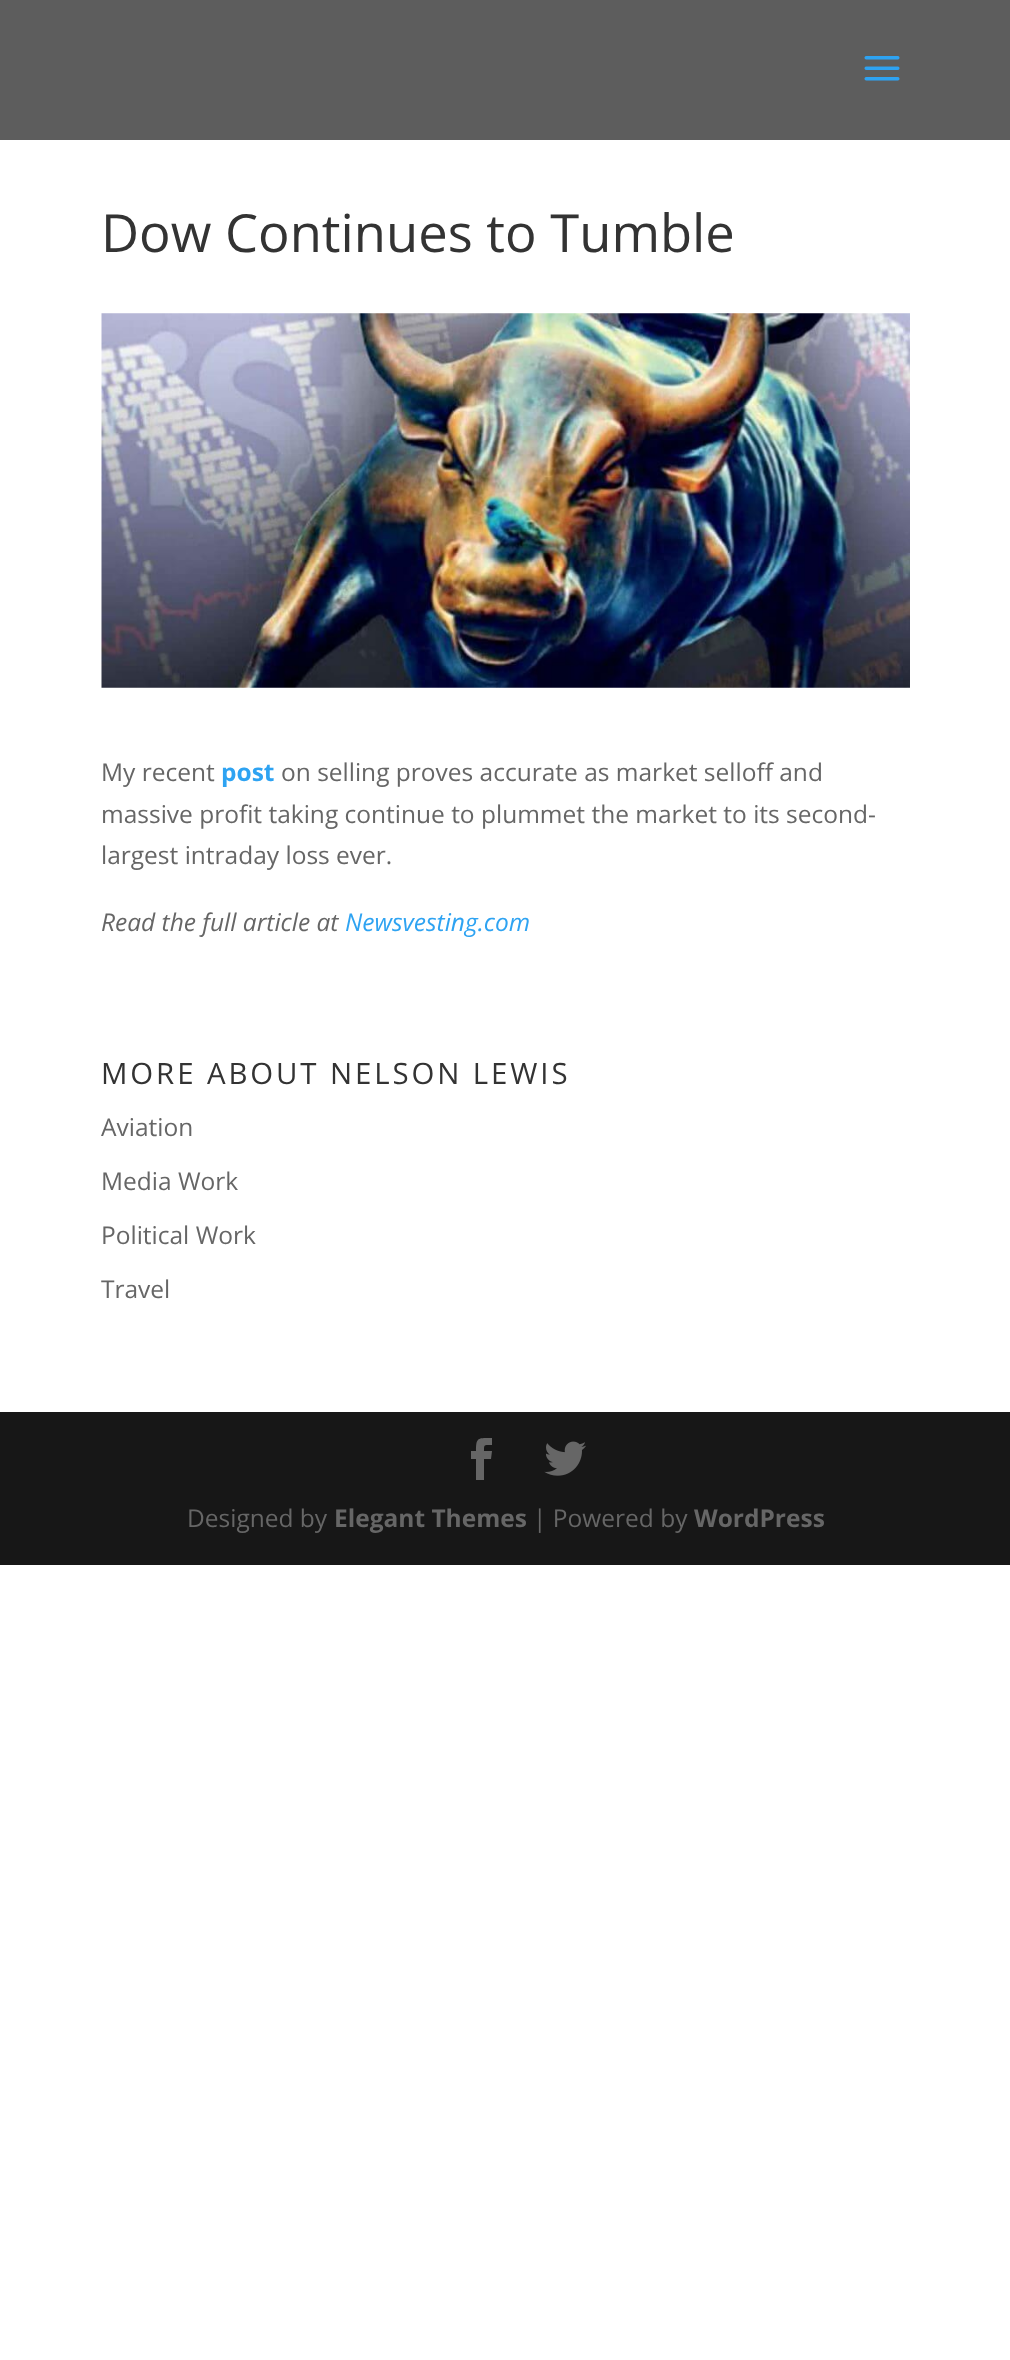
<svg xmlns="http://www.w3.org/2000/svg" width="1010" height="2360">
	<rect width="100%" height="100%" fill="#FFFFFF" />
	<rect x="0" y="0" width="1010" height="140" fill="#5D5D5D" />
	<image x="864" y="56" width="36" height="25" href="assets/img1.png" />
	<text x="101" y="252" font-family="Open Sans" font-size="52.5" fill="#333333">Dow Continues to Tumble</text>
	<image x="101" y="313" width="809" height="375" href="assets/img2.png" />
	<text x="101" y="781" font-family="Open Sans" font-size="24.5" fill="#666666">My recent</text>
	<text x="221" y="781" font-family="Open Sans" font-size="24.5" font-weight="700" fill="#2EA3F2">post</text>
	<g font-family="Open Sans" font-size="24.5" fill="#666666">
		<text x="281" y="781">on selling proves accurate as market selloff and</text>
		<text x="101" y="823">massive profit taking continue to plummet the market to its second-</text>
		<text x="101" y="864">largest intraday loss ever.</text>
	</g>
	<text x="101" y="931" font-family="Open Sans" font-size="24.5" font-style="italic" fill="#666666">Read the full article at</text>
	<text x="345" y="931" font-family="Open Sans" font-size="24.5" font-style="italic" fill="#2EA3F2">Newsvesting.com</text>
	<text x="101" y="1084" font-family="Open Sans" font-size="29.4" letter-spacing="2.9" fill="#333333">MORE ABOUT NELSON LEWIS</text>
	<g font-family="Open Sans" font-size="24.5" fill="#666666">
		<text x="101" y="1136">Aviation</text>
		<text x="101" y="1190">Media Work</text>
		<text x="101" y="1244">Political Work</text>
		<text x="101" y="1298">Travel</text>
	</g>
	<rect x="0" y="1412" width="1010" height="153" fill="#171717" />
	<path d="M476 1480H484V1459H491L492 1451H484C484 1444 484 1445 492 1445V1438C478 1438 476 1437 476 1451H471V1459H476Z" fill="#666666" />
	<image x="544" y="1441" width="42" height="35" href="assets/img3.png" />
	<text x="187" y="1527" font-family="Open Sans" font-size="24.5" fill="#666666">Designed by</text>
	<text x="334" y="1527" font-family="Open Sans" font-size="24.5" font-weight="700" fill="#666666">Elegant Themes</text>
	<text x="533" y="1527" font-family="Open Sans" font-size="24.5" fill="#666666">| Powered by</text>
	<text x="694" y="1527" font-family="Open Sans" font-size="24.5" font-weight="700" fill="#666666">WordPress</text>
</svg>
